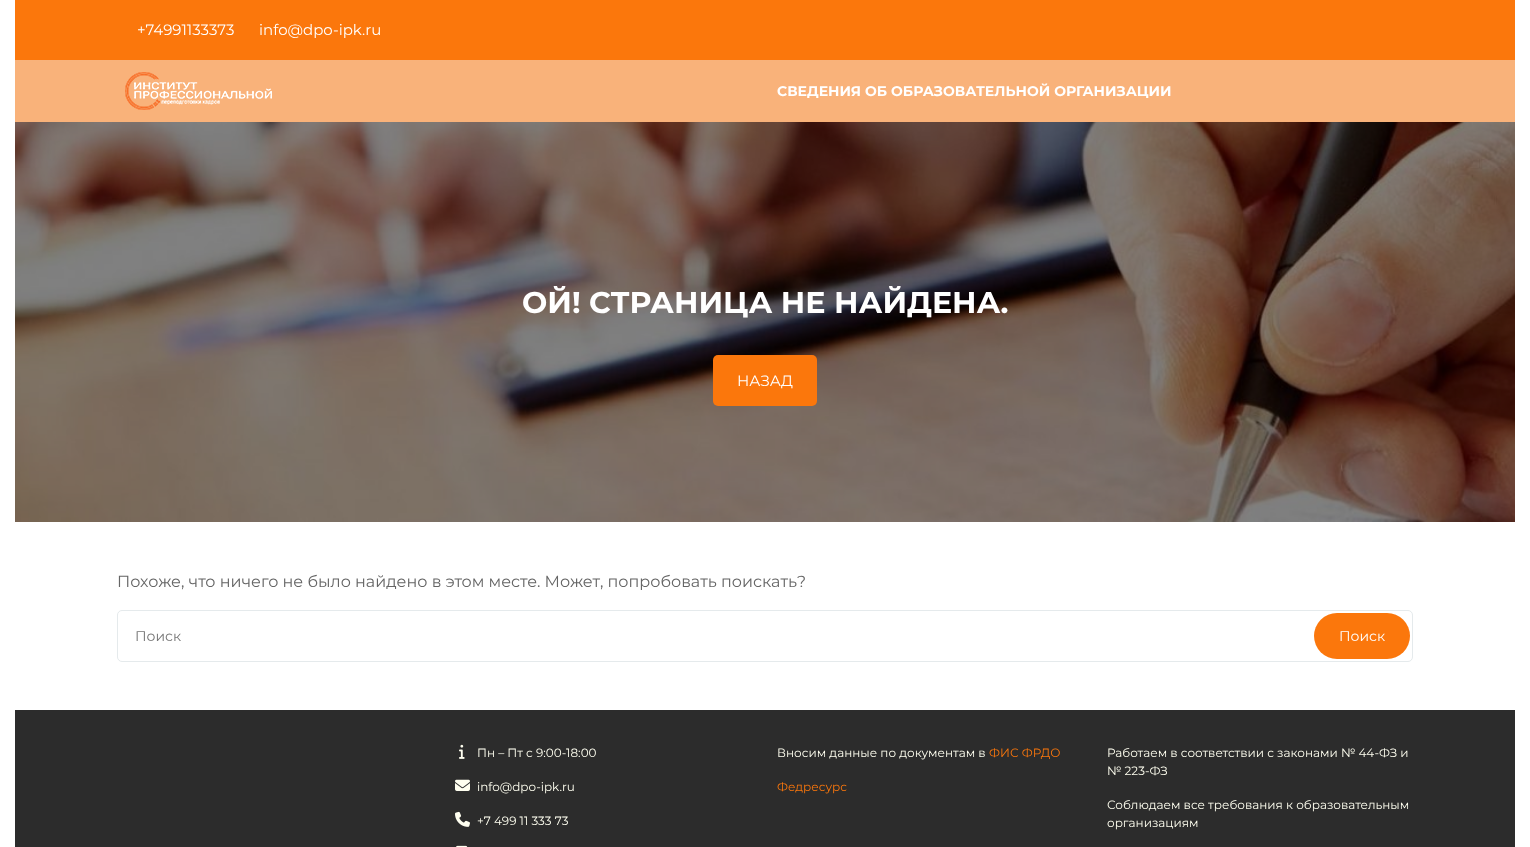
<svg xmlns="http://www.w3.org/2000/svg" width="1530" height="847">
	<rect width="100%" height="100%" fill="#FFFFFF" />
	<rect x="15" y="0" width="1500" height="60" fill="#FB770C" />
	<g font-family="Montserrat" font-size="15" fill="#FFFFFF">
		<text x="137" y="35">+74991133373</text>
		<text x="259" y="35">info@dpo-ipk.ru</text>
	</g>
	<rect x="15" y="60" width="1500" height="62" fill="#F9B27A" />
	<image x="125" y="72" width="147" height="38" href="assets/img1.png" />
	<text x="777" y="96" font-family="Montserrat" font-size="14" font-weight="700" fill="#FFFFFF">СВЕДЕНИЯ ОБ ОБРАЗОВАТЕЛЬНОЙ ОРГАНИЗАЦИИ</text>
	<rect x="15" y="122" width="1500" height="400" fill="#000000" />
	<image x="15" y="122" width="1500" height="400" href="assets/img2.png" />
	<text x="522" y="313" font-family="Montserrat" font-size="30" font-weight="700" fill="#FFFFFF">ОЙ! СТРАНИЦА НЕ НАЙДЕНА.</text>
	<rect x="713" y="355" width="104" height="51" rx="5" fill="#FB770C" />
	<text x="737" y="386" font-family="Montserrat" font-size="15" fill="#FFFFFF">НАЗАД</text>
	<text x="117" y="587" font-family="Montserrat" font-size="16" fill="#656565">Похоже, что ничего не было найдено в этом месте. Может, попробовать поискать?</text>
	<rect x="117.5" y="610.5" width="1295" height="51" rx="4.5" fill="none" stroke="#E5EAEC" />
	<text x="135" y="641" font-family="Montserrat" font-size="14" fill="#757575">Поиск</text>
	<rect x="1314" y="613" width="96" height="46" rx="23" fill="#FB770C" />
	<text x="1339" y="641" font-family="Montserrat" font-size="14" fill="#FFFFFF">Поиск</text>
	<rect x="15" y="710" width="1500" height="137" fill="#2C2C2C" />
	<image x="459" y="744" width="6" height="15" href="assets/img3.png" />
	<text x="477" y="757" font-family="Montserrat" font-size="12" fill="#FFFFF0">Пн – Пт с 9:00-18:00</text>
	<image x="455" y="779" width="15" height="12" href="assets/img4.png" />
	<text x="477" y="791" font-family="Montserrat" font-size="12" fill="#FFFFF0">info@dpo-ipk.ru</text>
	<image x="455" y="811" width="15" height="16" href="assets/img5.png" />
	<text x="477" y="825" font-family="Montserrat" font-size="12" fill="#FFFFF0">+7 499 11 333 73</text>
	<image x="456" y="845" width="12" height="2" href="assets/img6.png" />
	<text x="777" y="757" font-family="Montserrat" font-size="12" fill="#FFFFF0">Вносим данные по документам в</text>
	<g font-family="Montserrat" font-size="12" fill="#FB770C">
		<text x="989" y="757">ФИС ФРДО</text>
		<text x="777" y="791">Федресурс</text>
	</g>
	<g font-family="Montserrat" font-size="12" fill="#FFFFF0">
		<text x="1107" y="757">Работаем в соответствии с законами № 44-ФЗ и</text>
		<text x="1107" y="775">№ 223-ФЗ</text>
		<text x="1107" y="809">Соблюдаем все требования к образовательным</text>
		<text x="1107" y="827">организациям</text>
	</g>
</svg>
